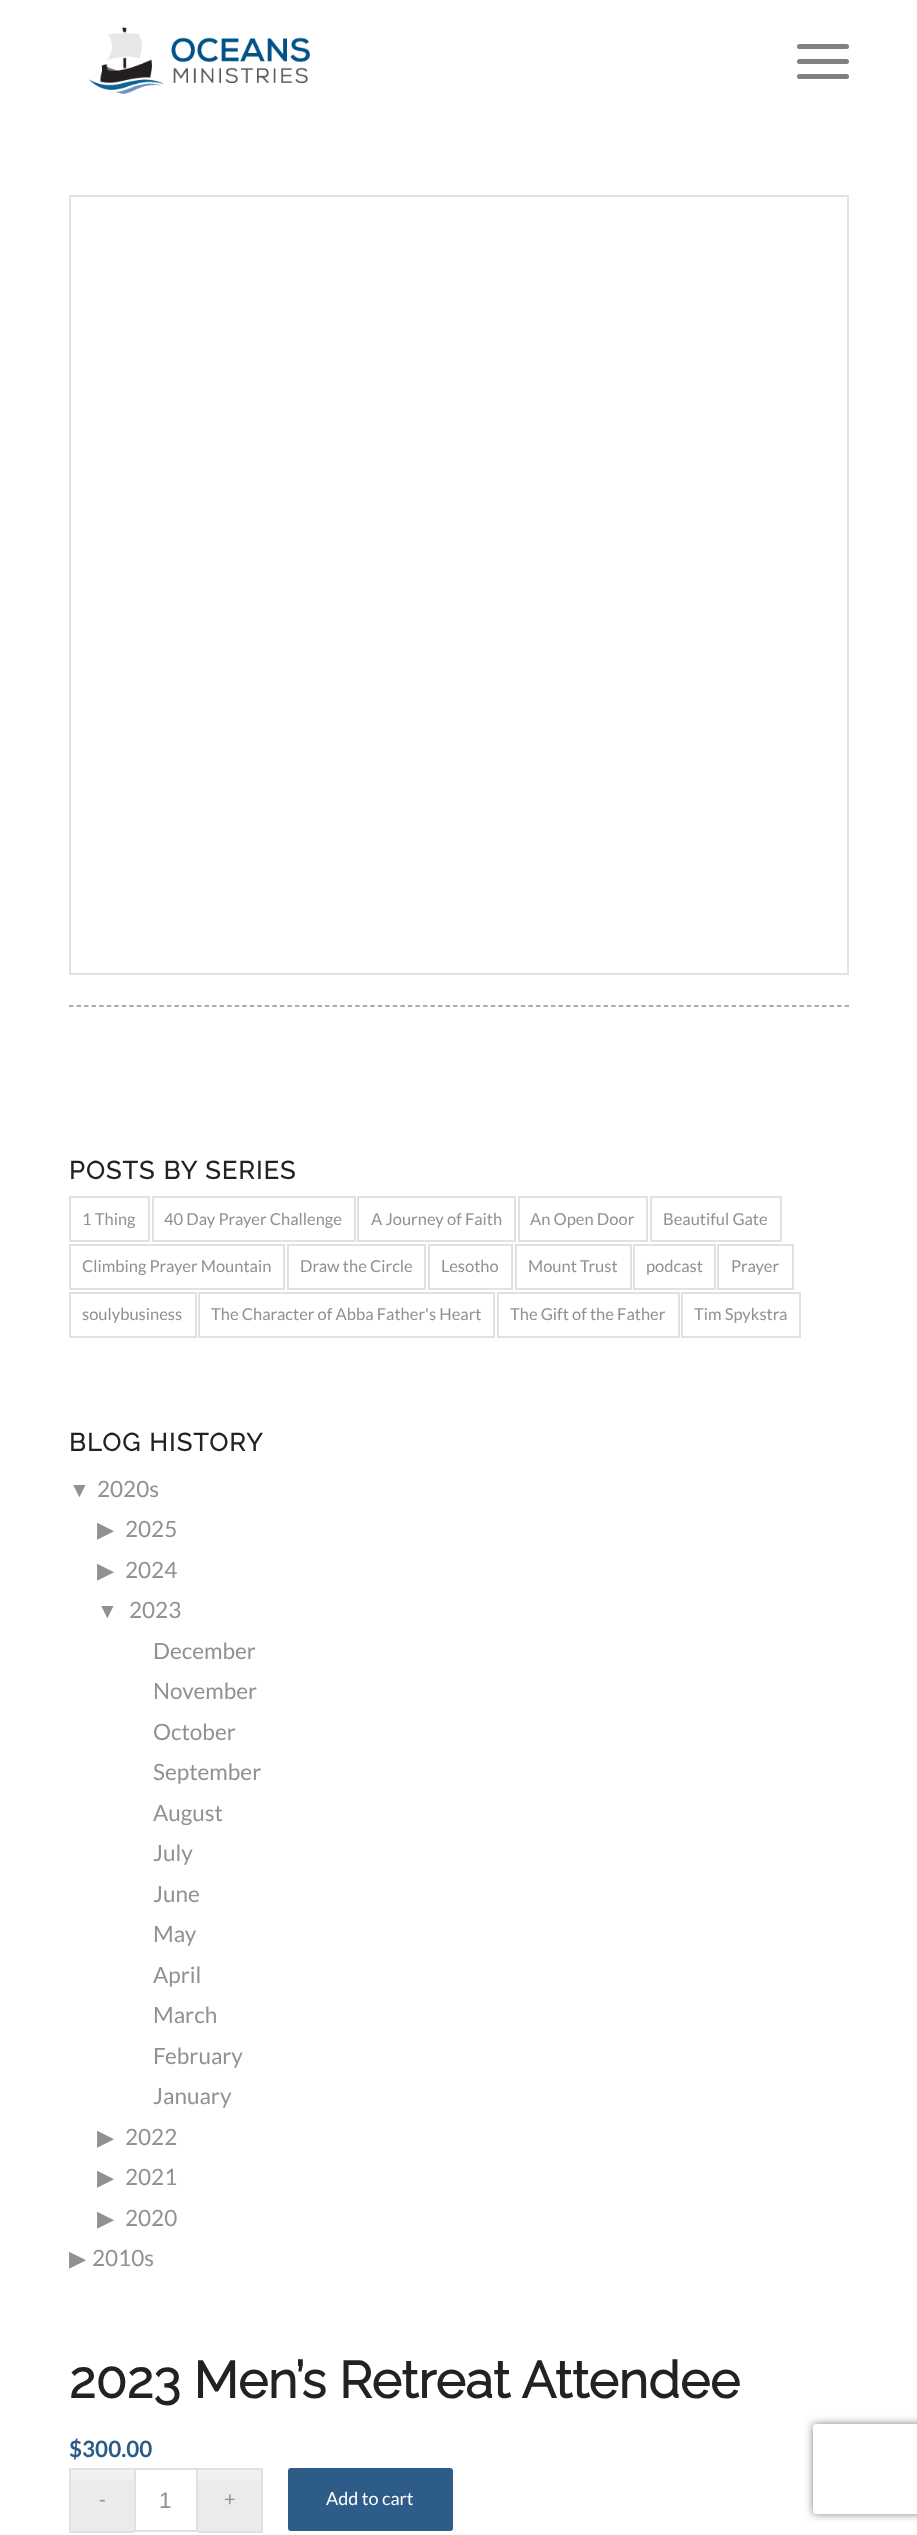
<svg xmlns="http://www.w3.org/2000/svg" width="917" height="2535">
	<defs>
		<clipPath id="clip1"><rect x="69" y="1007" width="780" height="1317" /></clipPath>
		<clipPath id="clip2"><path d="M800 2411H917V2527H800ZM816 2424H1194C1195.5 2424 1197 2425.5 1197 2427V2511C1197 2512.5 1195.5 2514 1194 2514H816C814.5 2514 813 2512.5 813 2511V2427C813 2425.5 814.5 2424 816 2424Z" clip-rule="evenodd" /></clipPath>
	</defs>
	<rect width="100%" height="100%" fill="#FFFFFF" />
	<image x="89" y="27" width="221" height="67" href="assets/img1.png" />
	<rect x="797" y="59" width="52" height="5" rx="2.5" fill="#808080" />
	<rect x="797" y="44" width="52" height="5" rx="2.5" fill="#808080" />
	<rect x="797" y="74" width="52" height="5" rx="2.5" fill="#808080" />
	<rect x="70" y="196" width="778" height="778" fill="none" stroke="#E1E1E1" stroke-width="2" />
	<path d="M69 1006H849" fill="none" stroke="#919191" stroke-width="1.5" stroke-dasharray="4.5 3.03" />
	<text x="69" y="1179" font-family="Raleway" font-size="24.75" font-weight="700" letter-spacing="1.5" fill="#222222">POSTS BY SERIES</text>
	<rect x="70" y="1197" width="79" height="44" fill="none" stroke="#E1E1E1" stroke-width="2" />
	<text x="82" y="1225" font-family="Lato" font-size="16.5" fill="#919191">1 Thing</text>
	<rect x="153" y="1197" width="202" height="44" fill="none" stroke="#E1E1E1" stroke-width="2" />
	<text x="164" y="1225" font-family="Lato" font-size="16.5" fill="#919191">40 Day Prayer Challenge</text>
	<rect x="358" y="1197" width="157" height="44" fill="none" stroke="#E1E1E1" stroke-width="2" />
	<text x="371" y="1225" font-family="Lato" font-size="16.5" fill="#919191">A Journey of Faith</text>
	<rect x="519" y="1197" width="128" height="44" fill="none" stroke="#E1E1E1" stroke-width="2" />
	<text x="530" y="1225" font-family="Lato" font-size="16.5" fill="#919191">An Open Door</text>
	<rect x="651" y="1197" width="130" height="44" fill="none" stroke="#E1E1E1" stroke-width="2" />
	<text x="663" y="1225" font-family="Lato" font-size="16.5" fill="#919191">Beautiful Gate</text>
	<rect x="70" y="1245" width="214" height="44" fill="none" stroke="#E1E1E1" stroke-width="2" />
	<text x="82" y="1272" font-family="Lato" font-size="16.5" fill="#919191">Climbing Prayer Mountain</text>
	<rect x="288" y="1245" width="137" height="44" fill="none" stroke="#E1E1E1" stroke-width="2" />
	<text x="300" y="1272" font-family="Lato" font-size="16.5" fill="#919191">Draw the Circle</text>
	<rect x="429" y="1245" width="83" height="44" fill="none" stroke="#E1E1E1" stroke-width="2" />
	<text x="441" y="1272" font-family="Lato" font-size="16.5" fill="#919191">Lesotho</text>
	<rect x="516" y="1245" width="115" height="44" fill="none" stroke="#E1E1E1" stroke-width="2" />
	<text x="528" y="1272" font-family="Lato" font-size="16.5" fill="#919191">Mount Trust</text>
	<rect x="634" y="1245" width="81" height="44" fill="none" stroke="#E1E1E1" stroke-width="2" />
	<text x="646" y="1272" font-family="Lato" font-size="16.5" fill="#919191">podcast</text>
	<rect x="718" y="1245" width="75" height="44" fill="none" stroke="#E1E1E1" stroke-width="2" />
	<text x="731" y="1272" font-family="Lato" font-size="16.5" fill="#919191">Prayer</text>
	<rect x="70" y="1293" width="126" height="44" fill="none" stroke="#E1E1E1" stroke-width="2" />
	<text x="82" y="1320" font-family="Lato" font-size="16.5" fill="#919191">soulybusiness</text>
	<rect x="199" y="1293" width="295" height="44" fill="none" stroke="#E1E1E1" stroke-width="2" />
	<text x="211" y="1320" font-family="Lato" font-size="16.5" fill="#919191">The Character of Abba Father's Heart</text>
	<rect x="498" y="1293" width="181" height="44" fill="none" stroke="#E1E1E1" stroke-width="2" />
	<text x="510" y="1320" font-family="Lato" font-size="16.5" fill="#919191">The Gift of the Father</text>
	<rect x="682" y="1293" width="118" height="44" fill="none" stroke="#E1E1E1" stroke-width="2" />
	<text x="694" y="1320" font-family="Lato" font-size="16.5" fill="#919191">Tim Spykstra</text>
	<text x="69" y="1451" font-family="Raleway" font-size="24.75" font-weight="700" letter-spacing="1.5" fill="#222222">BLOG HISTORY</text>
	<text x="69" y="1497" font-family="Liberation Sans" font-size="21" font-weight="700" fill="#919191">▼</text>
	<text x="97" y="1497" font-family="Lato" font-size="22.5" fill="#919191">2020s</text>
	<text x="97" y="1537" font-family="DejaVu Sans" font-size="21" font-weight="700" fill="#919191">▶</text>
	<text x="125" y="1537" font-family="Lato" font-size="22.5" fill="#919191">2025</text>
	<text x="97" y="1578" font-family="DejaVu Sans" font-size="21" font-weight="700" fill="#919191">▶</text>
	<text x="125" y="1578" font-family="Lato" font-size="22.5" fill="#919191">2024</text>
	<text x="97" y="1618" font-family="Liberation Sans" font-size="21" font-weight="700" fill="#919191">▼</text>
	<g font-family="Lato" font-size="22.5" fill="#919191">
		<text x="129" y="1618">2023</text>
		<text x="153" y="1659">December</text>
		<text x="153" y="1699">November</text>
		<text x="153" y="1740">October</text>
		<text x="153" y="1780">September</text>
		<text x="153" y="1821">August</text>
		<text x="153" y="1861">July</text>
		<text x="153" y="1902">June</text>
		<text x="153" y="1942">May</text>
		<text x="153" y="1983">April</text>
		<text x="153" y="2023">March</text>
		<text x="153" y="2064">February</text>
		<text x="153" y="2104">January</text>
	</g>
	<text x="97" y="2145" font-family="DejaVu Sans" font-size="21" font-weight="700" fill="#919191">▶</text>
	<text x="125" y="2145" font-family="Lato" font-size="22.5" fill="#919191">2022</text>
	<text x="97" y="2185" font-family="DejaVu Sans" font-size="21" font-weight="700" fill="#919191">▶</text>
	<text x="125" y="2185" font-family="Lato" font-size="22.5" fill="#919191">2021</text>
	<text x="97" y="2226" font-family="DejaVu Sans" font-size="21" font-weight="700" fill="#919191">▶</text>
	<text x="125" y="2226" font-family="Lato" font-size="22.5" fill="#919191">2020</text>
	<g clip-path="url(#clip1)">
		<text x="69" y="2266" font-family="DejaVu Sans" font-size="21" font-weight="700" fill="#919191">▶</text>
	</g>
	<text x="92" y="2266" font-family="Lato" font-size="22.5" fill="#919191">2010s</text>
	<text x="69" y="2398" font-family="Raleway" font-size="51" font-weight="700" fill="#222222">2023 Men’s Retreat Attendee</text>
	<text x="69" y="2457" font-family="Lato" font-size="22.5" font-weight="700" fill="#2D5C88">$300.00</text>
	<rect x="71" y="2470" width="63" height="61" fill="#EBEBEB" />
	<image x="71" y="2470" width="63" height="11" href="assets/img2.png" />
	<rect x="198" y="2470" width="63" height="61" fill="#EBEBEB" />
	<image x="198" y="2470" width="63" height="11" href="assets/img3.png" />
	<text x="99" y="2506" font-family="Liberation Sans" font-size="20" fill="#919191">-</text>
	<rect x="69" y="2468" width="65" height="2" fill="#E1E1E1" />
	<rect x="69" y="2531" width="65" height="2" fill="#E1E1E1" />
	<rect x="69" y="2468" width="2" height="64" fill="#E1E1E1" />
	<rect x="135" y="2469" width="62" height="62" fill="none" stroke="#E1E1E1" stroke-width="2" />
	<text x="159" y="2508" font-family="Liberation Sans" font-size="22.5" fill="#919191">1</text>
	<text x="224" y="2506" font-family="Liberation Sans" font-size="20" fill="#919191">+</text>
	<rect x="198" y="2468" width="65" height="2" fill="#E1E1E1" />
	<rect x="261" y="2468" width="2" height="64" fill="#E1E1E1" />
	<rect x="198" y="2531" width="65" height="2" fill="#E1E1E1" />
	<rect x="288" y="2468" width="165" height="63" rx="3" fill="#2D5C88" />
	<text x="326" y="2505" font-family="Lato" font-size="18" fill="#FFFFFF">Add to cart</text>
	<g clip-path="url(#clip2)">
		<rect x="813" y="2424" width="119" height="90" rx="3" fill="#808080" filter="blur(4px)" />
	</g>
</svg>
